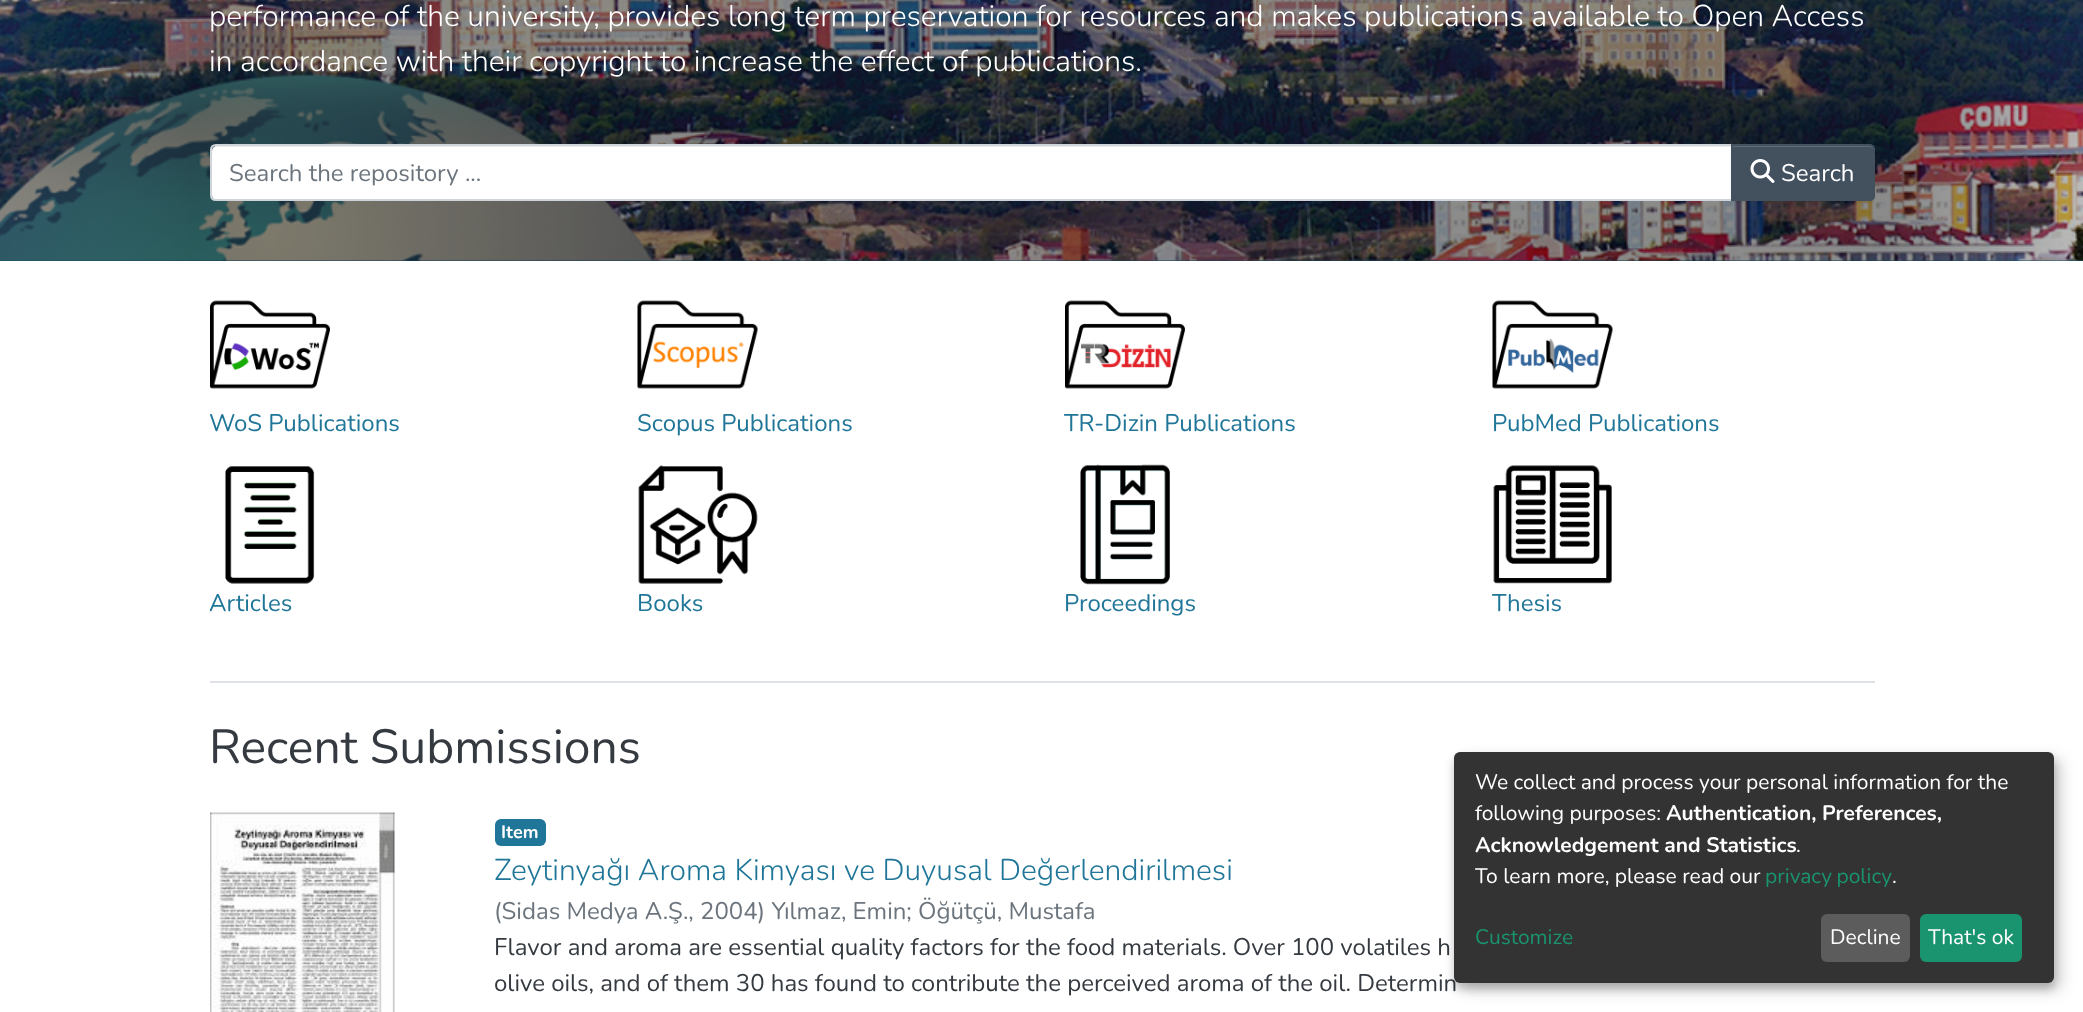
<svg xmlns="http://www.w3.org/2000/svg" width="2083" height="1012">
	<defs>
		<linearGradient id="g1" gradientUnits="userSpaceOnUse" x1="188" y1="30" x2="-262" y2="30"><stop offset="0" stop-color="#000000" stop-opacity="0.45" /><stop offset="1" stop-color="#000000" stop-opacity="0" /></linearGradient>
		<linearGradient id="g2" gradientUnits="userSpaceOnUse" x1="1898" y1="30" x2="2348" y2="30"><stop offset="0" stop-color="#000000" stop-opacity="0.45" /><stop offset="1" stop-color="#000000" stop-opacity="0" /></linearGradient>
	</defs>
	<rect width="100%" height="100%" fill="#FFFFFF" />
	<rect x="0" y="260" width="2083" height="1" fill="#207698" />
	<image x="0" y="0" width="2083" height="261" href="assets/img1.png" />
	<rect x="188" y="0" width="1710" height="261" fill="#000000" fill-opacity="0.45" />
	<rect x="0" y="0" width="188" height="261" fill="url(#g1)" />
	<g font-family="Nunito" font-size="30" font-weight="300" fill="#FFFFFF">
		<text x="209" y="26">performance of the university, provides long term preservation for resources and makes publications available to Open Access</text>
		<text x="209" y="71">in accordance with their copyright to increase the effect of publications.</text>
	</g>
	<path d="M217 146H1731V200H217C214 200 212 198 212 195V151C212 148 214 146 217 146Z" fill="#FFFFFF" />
	<path d="M216 147H1731V146H217C214 146 212 149 212 152C212 149 214 147 216 147Z" fill="#000000" fill-opacity="0.07" />
	<path d="M216 145H1732V200H216C213 200 211 198 211 195V150C211 147 213 145 216 145Z" fill="none" stroke="#CED4DA" stroke-width="2" />
	<text x="229" y="181" font-family="Nunito" font-size="24" fill="#6C757D">Search the repository ...</text>
	<rect x="1731" y="146" width="144" height="57" rx="6" fill="#000000" fill-opacity="0.07" filter="blur(1px)" />
	<path d="M1731 144H1869C1872.5 144 1875 146.5 1875 150V195C1875 198.5 1872.5 201 1869 201H1731Z" fill="#43515F" />
	<path d="M1733 146V147H1869C1871 147 1874 149 1874 152C1874 149 1872 146 1869 146Z" fill="#5F6B77" />
	<path d="M1732 145H1869C1872 145 1874 147 1874 150V195C1874 198 1872 200 1869 200H1732Z" fill="none" stroke="#43515F" stroke-width="2" />
	<image x="1750" y="159" width="25" height="24" href="assets/img2.png" />
	<text x="1781" y="181" font-family="Nunito" font-size="24" fill="#FFFFFF">Search</text>
	<rect x="1898" y="0" width="185" height="261" fill="url(#g2)" />
	<image x="210" y="300" width="120" height="89" href="assets/img3.png" />
	<text x="209" y="431" font-family="Nunito" font-size="24" fill="#207698">WoS Publications</text>
	<image x="637" y="300" width="121" height="89" href="assets/img4.png" />
	<text x="637" y="431" font-family="Nunito" font-size="24" fill="#207698">Scopus Publications</text>
	<image x="1065" y="300" width="120" height="89" href="assets/img5.png" />
	<text x="1064" y="431" font-family="Nunito" font-size="24" fill="#207698">TR-Dizin Publications</text>
	<image x="1492" y="300" width="121" height="89" href="assets/img6.png" />
	<text x="1492" y="431" font-family="Nunito" font-size="24" fill="#207698">PubMed Publications</text>
	<image x="225" y="466" width="90" height="118" href="assets/img7.png" />
	<text x="209" y="611" font-family="Nunito" font-size="24" fill="#207698">Articles</text>
	<image x="638" y="465" width="120" height="119" href="assets/img8.png" />
	<text x="637" y="611" font-family="Nunito" font-size="24" fill="#207698">Books</text>
	<image x="1080" y="464" width="90" height="121" href="assets/img9.png" />
	<text x="1064" y="611" font-family="Nunito" font-size="24" fill="#207698">Proceedings</text>
	<image x="1493" y="465" width="119" height="119" href="assets/img10.png" />
	<text x="1492" y="611" font-family="Nunito" font-size="24" fill="#207698">Thesis</text>
	<rect x="210" y="681" width="1665" height="2" fill="#DEE2E6" />
	<text x="209" y="763" font-family="Nunito" font-size="48" fill="#343A40">Recent Submissions</text>
	<image x="210" y="812" width="185" height="200" href="assets/img11.png" />
	<rect x="495" y="819" width="51" height="27" rx="6" fill="#207698" />
	<text x="501" y="838" font-family="Nunito" font-size="18" font-weight="700" fill="#FFFFFF">Item</text>
	<text x="494" y="880" font-family="Nunito" font-size="30" font-weight="300" fill="#207698">Zeytinyağı Aroma Kimyası ve Duyusal Değerlendirilmesi</text>
	<text x="494" y="919" font-family="Nunito" font-size="24" fill="#6C757D">(Sidas Medya A.Ş., 2004) Yılmaz, Emin; Öğütçü, Mustafa</text>
	<g font-family="Nunito" font-size="24" fill="#343A40">
		<text x="494" y="955">Flavor and aroma are essential quality factors for the food materials. Over 100 volatiles h</text>
		<text x="494" y="991">olive oils, and of them 30 has found to contribute the perceived aroma of the oil. Determin</text>
	</g>
	<rect x="1461" y="759" width="600" height="231" rx="6" fill="#000000" fill-opacity="0.19" filter="blur(7.5px)" />
	<rect x="1454" y="758" width="600" height="231" rx="6" fill="#000000" fill-opacity="0.2" filter="blur(4.5px)" />
	<rect x="1454" y="752" width="600" height="231" rx="6" fill="#333333" />
	<g font-family="Nunito" font-size="21" fill="#FFFFFF">
		<text x="1475" y="789">We collect and process your personal information for the</text>
		<text x="1475" y="820">following purposes:</text>
	</g>
	<g font-family="Nunito" font-size="21" font-weight="700" fill="#FFFFFF">
		<text x="1666" y="820">Authentication, Preferences,</text>
		<text x="1475" y="852">Acknowledgement and Statistics</text>
	</g>
	<g font-family="Nunito" font-size="21" fill="#FFFFFF">
		<text x="1796" y="852">.</text>
		<text x="1475" y="883">To learn more, please read our</text>
	</g>
	<text x="1765" y="883" word-spacing="-1" font-family="Nunito" font-size="21" fill="#1A936F">privacy policy</text>
	<text x="1892" y="883" font-family="Nunito" font-size="21" fill="#FFFFFF">.</text>
	<text x="1475" y="944" font-family="Nunito" font-size="21" fill="#1A936F">Customize</text>
	<rect x="1821" y="914" width="89" height="48" rx="6" fill="#5C5C5C" />
	<text x="1830" y="944" font-family="Nunito" font-size="21" fill="#FFFFFF">Decline</text>
	<rect x="1920" y="914" width="102" height="48" rx="6" fill="#1A936F" />
	<text x="1928" y="944" font-family="Nunito" font-size="21" fill="#FFFFFF">That's ok</text>
</svg>
